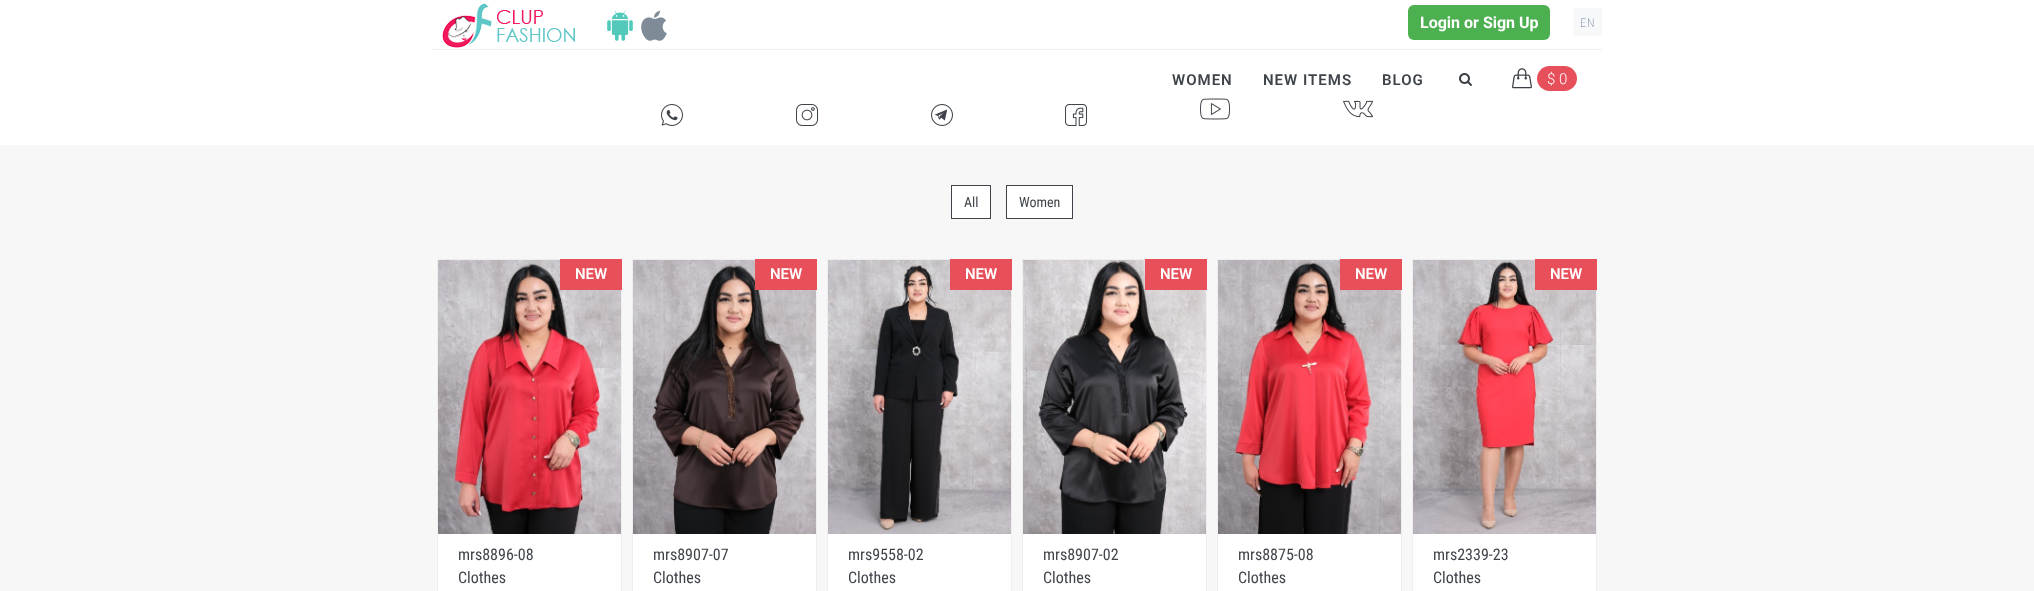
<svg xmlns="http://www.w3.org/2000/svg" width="2034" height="591">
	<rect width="100%" height="100%" fill="#FFFFFF" />
	<rect x="432" y="49" width="1170" height="1" fill="#EDEFF3" />
	<image x="442" y="3" width="133" height="45" href="assets/img1.png" />
	<image x="607" y="10" width="26" height="31" href="assets/img2.png" />
	<image x="641" y="10" width="26" height="31" href="assets/img3.png" />
	<rect x="1408" y="5" width="142" height="35" rx="6" fill="#4CAF50" />
	<text x="1420" y="28" font-family="Roboto" font-size="16" font-weight="700" fill="#FFFFFF">Login or Sign Up</text>
	<rect x="1573" y="8" width="29" height="28" fill="#F6F8FA" />
	<text x="1580" y="27" font-family="Roboto Condensed" font-size="12" font-weight="200" letter-spacing="1" fill="#697D99">EN</text>
	<g font-family="Roboto" font-size="15" font-weight="600" letter-spacing="1" fill="#3F444A">
		<text x="1172" y="85">WOMEN</text>
		<text x="1263" y="85">NEW ITEMS</text>
		<text x="1382" y="85">BLOG</text>
	</g>
	<image x="1459" y="73" width="13" height="13" href="assets/img4.png" />
	<image x="1512" y="68" width="20" height="21" href="assets/img5.png" />
	<rect x="1537" y="66" width="40" height="25" rx="12.5" fill="#E7505A" />
	<text x="1547" y="84" font-family="Roboto" font-size="15" font-weight="300" fill="#FFFFFF">$ 0</text>
	<image x="661" y="104" width="22" height="22" href="assets/img6.png" />
	<image x="796" y="104" width="23" height="22" href="assets/img7.png" />
	<image x="931" y="104" width="22" height="22" href="assets/img8.png" />
	<image x="1065" y="104" width="22" height="22" href="assets/img9.png" />
	<image x="1200" y="98" width="30" height="22" href="assets/img10.png" />
	<image x="1343" y="100" width="30" height="18" href="assets/img11.png" />
	<rect x="0" y="145" width="2034" height="446" fill="#F7F7F7" />
	<rect x="951.5" y="185.5" width="39" height="33" fill="#FFFFFF" stroke="#3F444A" />
	<text x="964" y="207" font-family="Roboto Condensed" font-size="14" fill="#3F444A">All</text>
	<rect x="1006.5" y="185.5" width="66" height="33" fill="#FFFFFF" stroke="#3F444A" />
	<text x="1019" y="207" font-family="Roboto Condensed" font-size="14" fill="#3F444A">Women</text>
	<rect x="438" y="534" width="183" height="57" fill="#FFFFFF" />
	<rect x="437.5" y="259.5" width="184" height="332" fill="none" stroke="#EEEEEE" />
	<image x="438" y="260" width="183" height="274" href="assets/img12.png" />
	<rect x="560" y="259" width="62" height="31" fill="#E7505A" />
	<text x="575" y="279" font-family="Roboto" font-size="15" font-weight="600" fill="#FFFFFF">NEW</text>
	<g font-family="Roboto Condensed" font-size="16" fill="#3F444A">
		<text x="458" y="560">mrs8896-08</text>
		<text x="458" y="583">Clothes</text>
	</g>
	<rect x="633" y="534" width="183" height="57" fill="#FFFFFF" />
	<rect x="632.5" y="259.5" width="184" height="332" fill="none" stroke="#EEEEEE" />
	<image x="633" y="260" width="183" height="274" href="assets/img13.png" />
	<rect x="755" y="259" width="62" height="31" fill="#E7505A" />
	<text x="770" y="279" font-family="Roboto" font-size="15" font-weight="600" fill="#FFFFFF">NEW</text>
	<g font-family="Roboto Condensed" font-size="16" fill="#3F444A">
		<text x="653" y="560">mrs8907-07</text>
		<text x="653" y="583">Clothes</text>
	</g>
	<rect x="828" y="534" width="183" height="57" fill="#FFFFFF" />
	<rect x="827.5" y="259.5" width="184" height="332" fill="none" stroke="#EEEEEE" />
	<image x="828" y="260" width="183" height="274" href="assets/img14.png" />
	<rect x="950" y="259" width="62" height="31" fill="#E7505A" />
	<text x="965" y="279" font-family="Roboto" font-size="15" font-weight="600" fill="#FFFFFF">NEW</text>
	<g font-family="Roboto Condensed" font-size="16" fill="#3F444A">
		<text x="848" y="560">mrs9558-02</text>
		<text x="848" y="583">Clothes</text>
	</g>
	<rect x="1023" y="534" width="183" height="57" fill="#FFFFFF" />
	<rect x="1022.5" y="259.5" width="184" height="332" fill="none" stroke="#EEEEEE" />
	<image x="1023" y="260" width="183" height="274" href="assets/img15.png" />
	<rect x="1145" y="259" width="62" height="31" fill="#E7505A" />
	<text x="1160" y="279" font-family="Roboto" font-size="15" font-weight="600" fill="#FFFFFF">NEW</text>
	<g font-family="Roboto Condensed" font-size="16" fill="#3F444A">
		<text x="1043" y="560">mrs8907-02</text>
		<text x="1043" y="583">Clothes</text>
	</g>
	<rect x="1218" y="534" width="183" height="57" fill="#FFFFFF" />
	<rect x="1217.5" y="259.5" width="184" height="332" fill="none" stroke="#EEEEEE" />
	<image x="1218" y="260" width="183" height="274" href="assets/img16.png" />
	<rect x="1340" y="259" width="62" height="31" fill="#E7505A" />
	<text x="1355" y="279" font-family="Roboto" font-size="15" font-weight="600" fill="#FFFFFF">NEW</text>
	<g font-family="Roboto Condensed" font-size="16" fill="#3F444A">
		<text x="1238" y="560">mrs8875-08</text>
		<text x="1238" y="583">Clothes</text>
	</g>
	<rect x="1413" y="534" width="183" height="57" fill="#FFFFFF" />
	<rect x="1412.5" y="259.5" width="184" height="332" fill="none" stroke="#EEEEEE" />
	<image x="1413" y="260" width="183" height="274" href="assets/img17.png" />
	<rect x="1535" y="259" width="62" height="31" fill="#E7505A" />
	<text x="1550" y="279" font-family="Roboto" font-size="15" font-weight="600" fill="#FFFFFF">NEW</text>
	<g font-family="Roboto Condensed" font-size="16" fill="#3F444A">
		<text x="1433" y="560">mrs2339-23</text>
		<text x="1433" y="583">Clothes</text>
	</g>
</svg>
